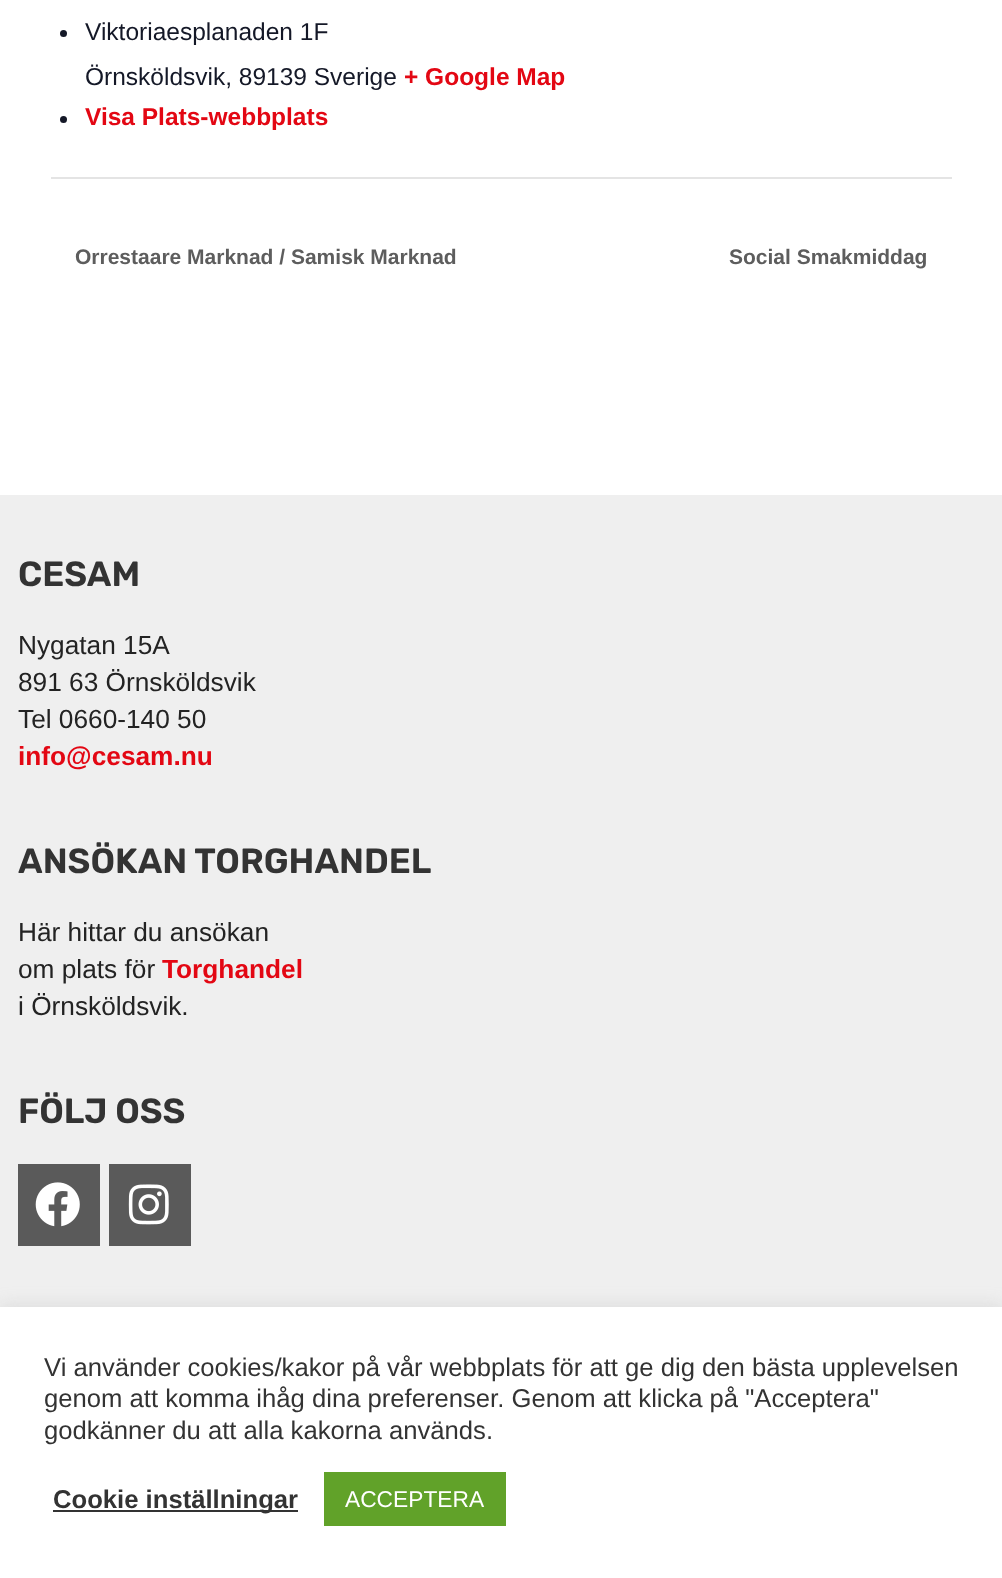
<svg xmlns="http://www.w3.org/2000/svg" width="1002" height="1578">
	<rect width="100%" height="100%" fill="#FFFFFF" />
	<circle cx="63.5" cy="33.5" r="3.5" fill="#141827" />
	<g font-family="Liberation Sans" font-size="24.5" fill="#141827">
		<text x="85" y="40">Viktoriaesplanaden 1F</text>
		<text x="85" y="85">Örnsköldsvik, 89139 Sverige</text>
	</g>
	<text x="404" y="85" font-family="Liberation Sans" font-size="24.5" font-weight="700" fill="#E30713">+ Google Map</text>
	<circle cx="63.5" cy="119.5" r="3.5" fill="#141827" />
	<text x="85" y="125" font-family="Liberation Sans" font-size="24.5" font-weight="700" fill="#E30713">Visa Plats-webbplats</text>
	<rect x="51" y="177" width="901" height="2" fill="#E4E4E4" />
	<g font-family="Liberation Sans" font-size="21" font-weight="700" fill="#5D5D5D">
		<text x="75" y="264">Orrestaare Marknad / Samisk Marknad</text>
		<text x="729" y="264">Social Smakmiddag</text>
	</g>
	<rect x="0" y="495" width="1002" height="812" fill="#EFEFEF" />
	<text x="18" y="586" font-family="Rubik" font-size="35" font-weight="600" fill="#333333">CESAM</text>
	<g font-family="Liberation Sans" font-size="26.25" fill="#232323">
		<text x="18" y="654">Nygatan 15A</text>
		<text x="18" y="691">891 63 Örnsköldsvik</text>
		<text x="18" y="728">Tel 0660-140 50</text>
	</g>
	<text x="18" y="765" font-family="Liberation Sans" font-size="26.25" font-weight="700" fill="#E30713">info@cesam.nu</text>
	<text x="18" y="873" font-family="Rubik" font-size="35" font-weight="600" fill="#333333">ANSÖKAN TORGHANDEL</text>
	<g font-family="Liberation Sans" font-size="26.25" fill="#232323">
		<text x="18" y="941">Här hittar du ansökan</text>
		<text x="18" y="978">om plats för</text>
	</g>
	<text x="162" y="978" font-family="Liberation Sans" font-size="26.25" font-weight="700" fill="#E30713">Torghandel</text>
	<text x="18" y="1015" font-family="Liberation Sans" font-size="26.25" fill="#232323">i Örnsköldsvik.</text>
	<text x="18" y="1123" font-family="Rubik" font-size="35" font-weight="600" fill="#333333">FÖLJ OSS</text>
	<rect x="18" y="1164" width="82" height="82" fill="#5A5A5A" />
	<image x="35" y="1182" width="45" height="45" href="assets/img1.png" />
	<rect x="109" y="1164" width="82" height="82" fill="#5A5A5A" />
	<image x="128" y="1184" width="41" height="41" href="assets/img2.png" />
	<rect x="0" y="1306" width="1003" height="271" fill="#ACABAB" fill-opacity="0.3" filter="blur(9px)" />
	<rect x="0" y="1307" width="1002" height="271" fill="#FFFFFF" />
	<g font-family="Liberation Sans" font-size="25.65" fill="#333333">
		<text x="44" y="1376">Vi använder cookies/kakor på vår webbplats för att ge dig den bästa upplevelsen</text>
		<text x="44" y="1407">genom att komma ihåg dina preferenser. Genom att klicka på "Acceptera"</text>
		<text x="44" y="1439">godkänner du att alla kakorna används.</text>
	</g>
	<rect x="53" y="1510" width="245" height="2" fill="#333333" />
	<text x="53" y="1508" font-family="Liberation Sans" font-size="25.65" font-weight="700" fill="#333333">Cookie inställningar</text>
	<rect x="324" y="1472" width="182" height="54" fill="#61A229" />
	<text x="345" y="1507" font-family="Liberation Sans" font-size="22.75" fill="#FFFFFF">ACCEPTERA</text>
</svg>
